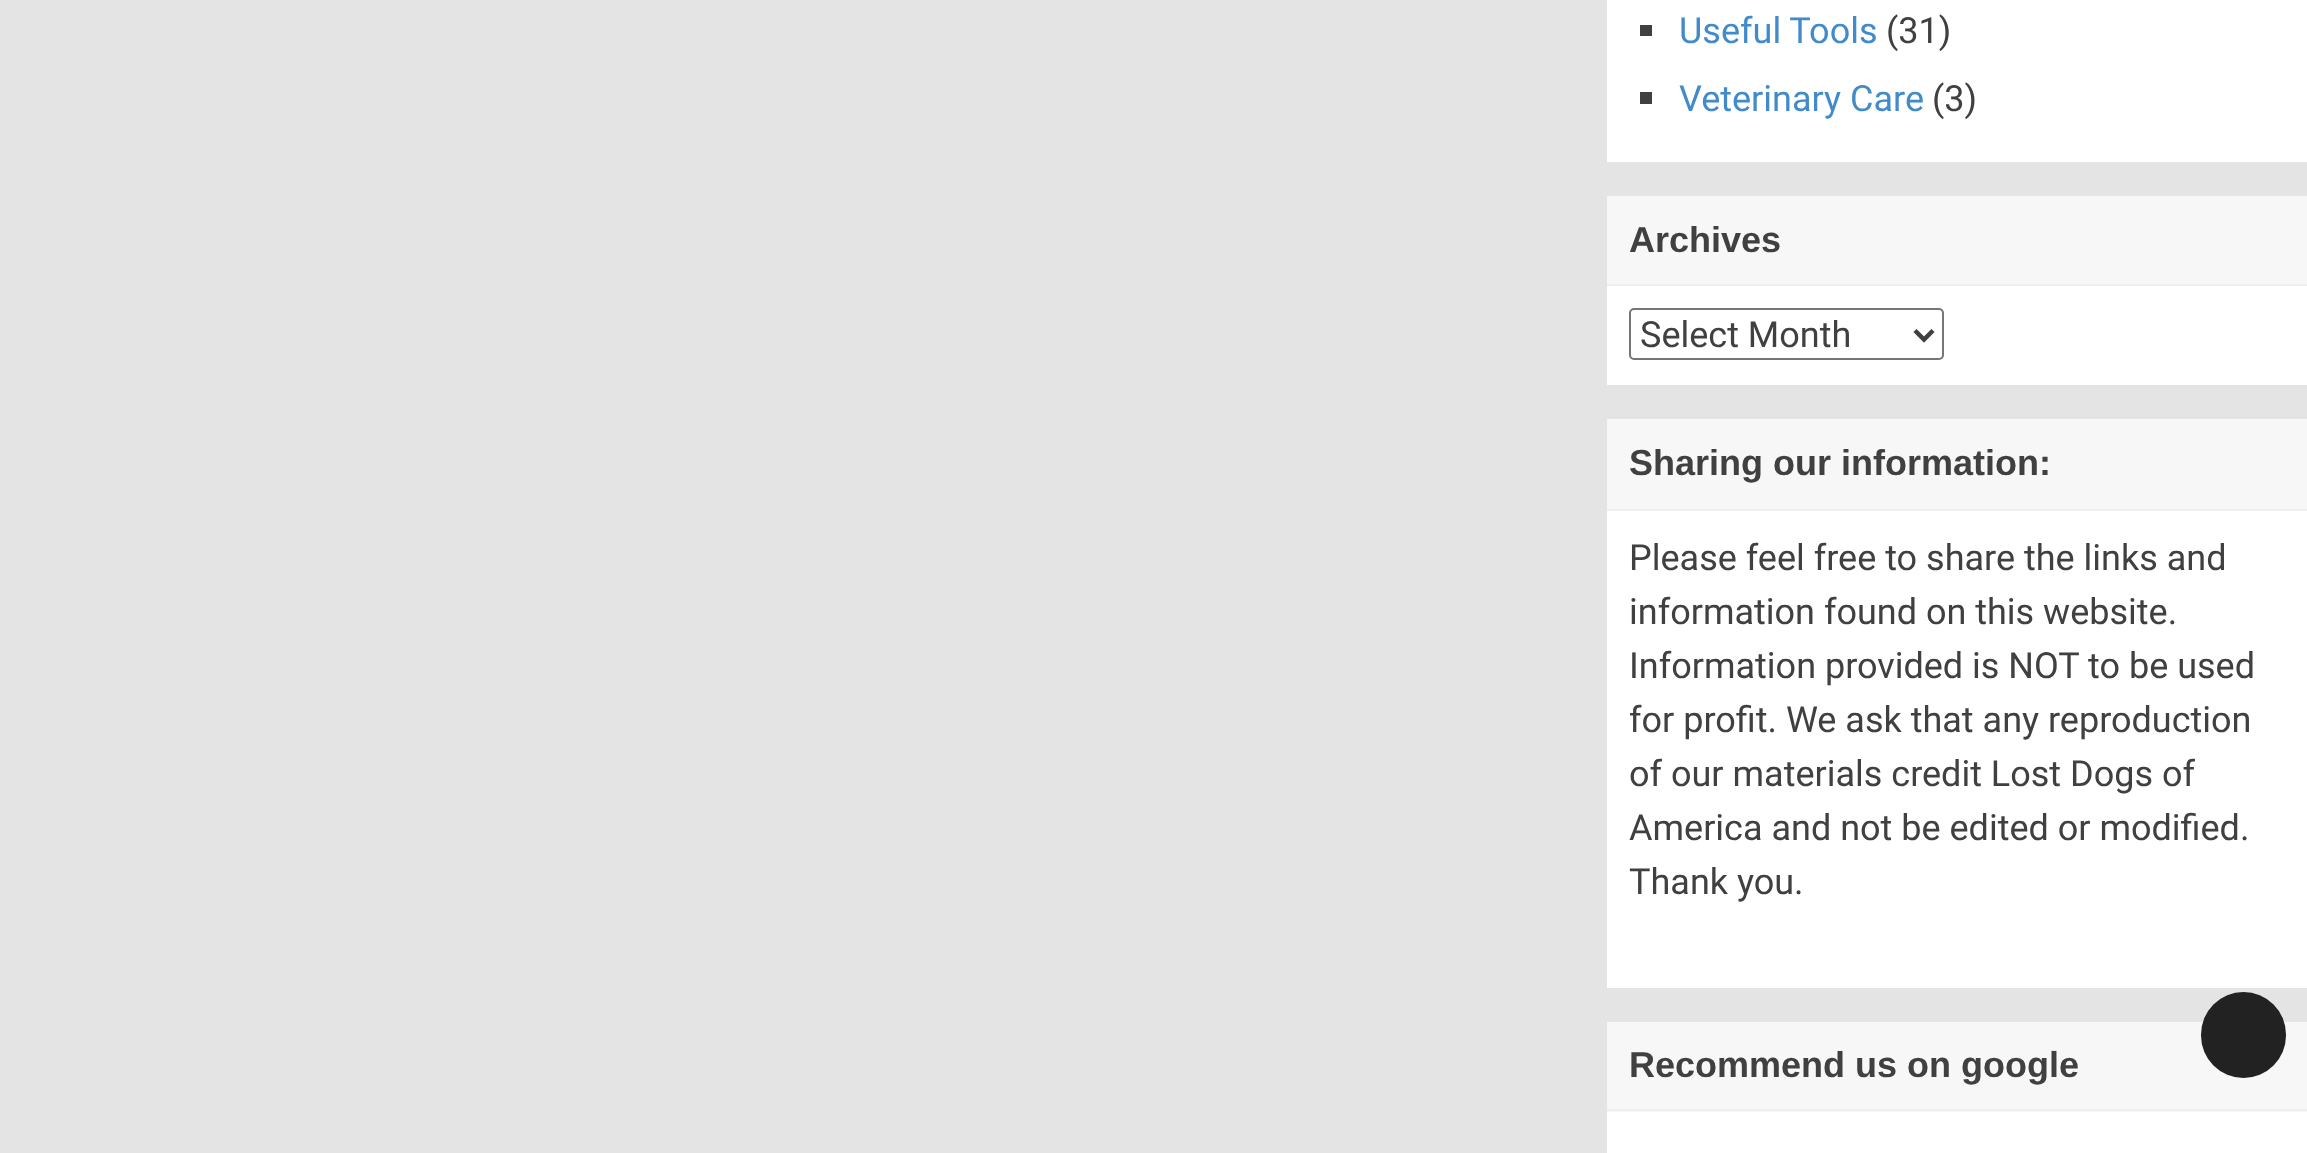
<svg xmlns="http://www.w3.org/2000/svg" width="2307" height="1153">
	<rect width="100%" height="100%" fill="#E4E4E4" />
	<rect x="1607" y="0" width="700" height="162" fill="#FFFFFF" />
	<rect x="1640" y="25" width="12" height="11" fill="#404040" />
	<text x="1679" y="43" font-family="Roboto" font-size="36" fill="#428BCA">Useful Tools</text>
	<text x="1886" y="43" font-family="Roboto" font-size="36" fill="#404040">(31)</text>
	<rect x="1640" y="92" width="12" height="12" fill="#404040" />
	<text x="1679" y="111" font-family="Roboto" font-size="36" fill="#428BCA">Veterinary Care</text>
	<text x="1932" y="111" font-family="Roboto" font-size="36" fill="#404040">(3)</text>
	<rect x="1607" y="286" width="700" height="99" fill="#FFFFFF" />
	<rect x="1607" y="196" width="700" height="88" fill="#F7F7F7" />
	<rect x="1607" y="284" width="700" height="2" fill="#EEEEEE" />
	<text x="1629" y="252" font-family="Liberation Sans" font-size="36" font-weight="700" fill="#404040">Archives</text>
	<rect x="1630" y="309" width="313" height="50" rx="4" fill="none" stroke="#767676" stroke-width="2" />
	<path d="M1915 330.5L1924 339.5L1933 330.5" fill="none" stroke="#404040" stroke-width="4.5" />
	<text x="1640" y="347" font-family="Roboto" font-size="36" fill="#404040">Select Month</text>
	<rect x="1607" y="511" width="700" height="477" fill="#FFFFFF" />
	<rect x="1607" y="419" width="700" height="90" fill="#F7F7F7" />
	<rect x="1607" y="509" width="700" height="2" fill="#EEEEEE" />
	<text x="1629" y="475" font-family="Liberation Sans" font-size="36" font-weight="700" fill="#404040">Sharing our information:</text>
	<g font-family="Roboto" font-size="36" fill="#404040">
		<text x="1629" y="570">Please feel free to share the links and</text>
		<text x="1629" y="624">information found on this website.</text>
		<text x="1629" y="678">Information provided is NOT to be used</text>
		<text x="1629" y="732">for profit. We ask that any reproduction</text>
		<text x="1629" y="786">of our materials credit Lost Dogs of</text>
		<text x="1629" y="840">America and not be edited or modified.</text>
		<text x="1629" y="894">Thank you.</text>
	</g>
	<rect x="1607" y="1112" width="700" height="41" fill="#FFFFFF" />
	<rect x="1607" y="1022" width="700" height="90" fill="#F7F7F7" />
	<rect x="1607" y="1109" width="700" height="2" fill="#EEEEEE" />
	<text x="1629" y="1077" font-family="Liberation Sans" font-size="36" font-weight="700" fill="#404040">Recommend us on google</text>
	<rect x="2201" y="992" width="85" height="86" rx="42.5" fill="#222222" />
</svg>
